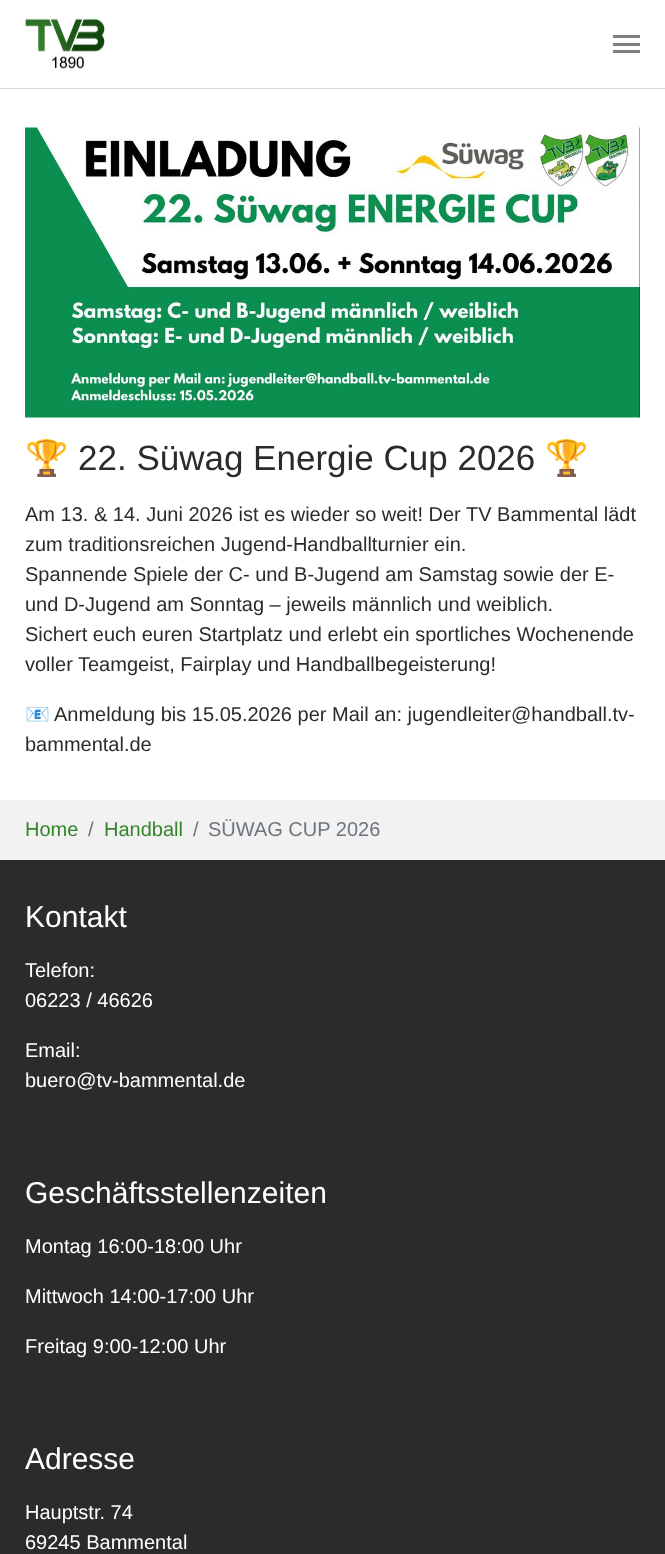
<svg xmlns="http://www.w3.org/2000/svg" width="665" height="1554">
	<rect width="100%" height="100%" fill="#FFFFFF" />
	<rect x="0" y="88" width="665" height="1" fill="#D9D9D9" />
	<image x="25" y="18" width="80" height="51" href="assets/img1.png" />
	<rect x="613" y="43" width="27" height="3" fill="#808080" />
	<rect x="613" y="35" width="27" height="3" fill="#808080" />
	<rect x="613" y="50" width="27" height="3" fill="#808080" />
	<image x="25" y="127" width="615" height="291" href="assets/img2.png" />
	<text x="25" y="470" font-family="Noto Color Emoji" font-size="35" fill="#2B2B2B">🏆</text>
	<text x="78" y="470" font-family="Liberation Sans" font-size="35" fill="#2B2B2B">22. Süwag Energie Cup 2026</text>
	<text x="545" y="470" font-family="Noto Color Emoji" font-size="35" fill="#2B2B2B">🏆</text>
	<g font-family="Liberation Sans" font-size="20" fill="#2B2B2B">
		<text x="25" y="521">Am 13. &amp; 14. Juni 2026 ist es wieder so weit! Der TV Bammental lädt</text>
		<text x="25" y="551">zum traditionsreichen Jugend-Handballturnier ein.</text>
		<text x="25" y="581">Spannende Spiele der C- und B-Jugend am Samstag sowie der E-</text>
		<text x="25" y="611">und D-Jugend am Sonntag – jeweils männlich und weiblich.</text>
		<text x="25" y="641">Sichert euch euren Startplatz und erlebt ein sportliches Wochenende</text>
		<text x="25" y="671">voller Teamgeist, Fairplay und Handballbegeisterung!</text>
	</g>
	<text x="25" y="721" font-family="Noto Color Emoji" font-size="20" fill="#2B2B2B">📧</text>
	<g font-family="Liberation Sans" font-size="20" fill="#2B2B2B">
		<text x="54" y="721">Anmeldung bis 15.05.2026 per Mail an: jugendleiter@handball.tv-</text>
		<text x="25" y="751">bammental.de</text>
	</g>
	<rect x="0" y="800" width="665" height="60" fill="#F2F2F2" />
	<text x="25" y="836" font-family="Liberation Sans" font-size="20" fill="#33842A">Home</text>
	<text x="88" y="836" font-family="Liberation Sans" font-size="20" fill="#6C757D">/</text>
	<text x="104" y="836" font-family="Liberation Sans" font-size="20" fill="#33842A">Handball</text>
	<g font-family="Liberation Sans" font-size="20" fill="#6C757D">
		<text x="193" y="836">/</text>
		<text x="208" y="836">SÜWAG CUP 2026</text>
	</g>
	<rect x="0" y="860" width="665" height="694" fill="#2B2B2B" />
	<text x="25" y="927" font-family="Liberation Sans" font-size="30" fill="#FFFFFF">Kontakt</text>
	<g font-family="Liberation Sans" font-size="20" fill="#FFFFFF">
		<text x="25" y="977">Telefon:</text>
		<text x="25" y="1007">06223 / 46626</text>
		<text x="25" y="1057">Email:</text>
		<text x="25" y="1087">buero@tv-bammental.de</text>
	</g>
	<text x="25" y="1203" font-family="Liberation Sans" font-size="30" fill="#FFFFFF">Geschäftsstellenzeiten</text>
	<g font-family="Liberation Sans" font-size="20" fill="#FFFFFF">
		<text x="25" y="1253">Montag 16:00-18:00 Uhr</text>
		<text x="25" y="1303">Mittwoch 14:00-17:00 Uhr</text>
		<text x="25" y="1353">Freitag 9:00-12:00 Uhr</text>
	</g>
	<text x="25" y="1469" font-family="Liberation Sans" font-size="30" fill="#FFFFFF">Adresse</text>
	<g font-family="Liberation Sans" font-size="20" fill="#FFFFFF">
		<text x="25" y="1519">Hauptstr. 74</text>
		<text x="25" y="1549">69245 Bammental</text>
	</g>
</svg>
